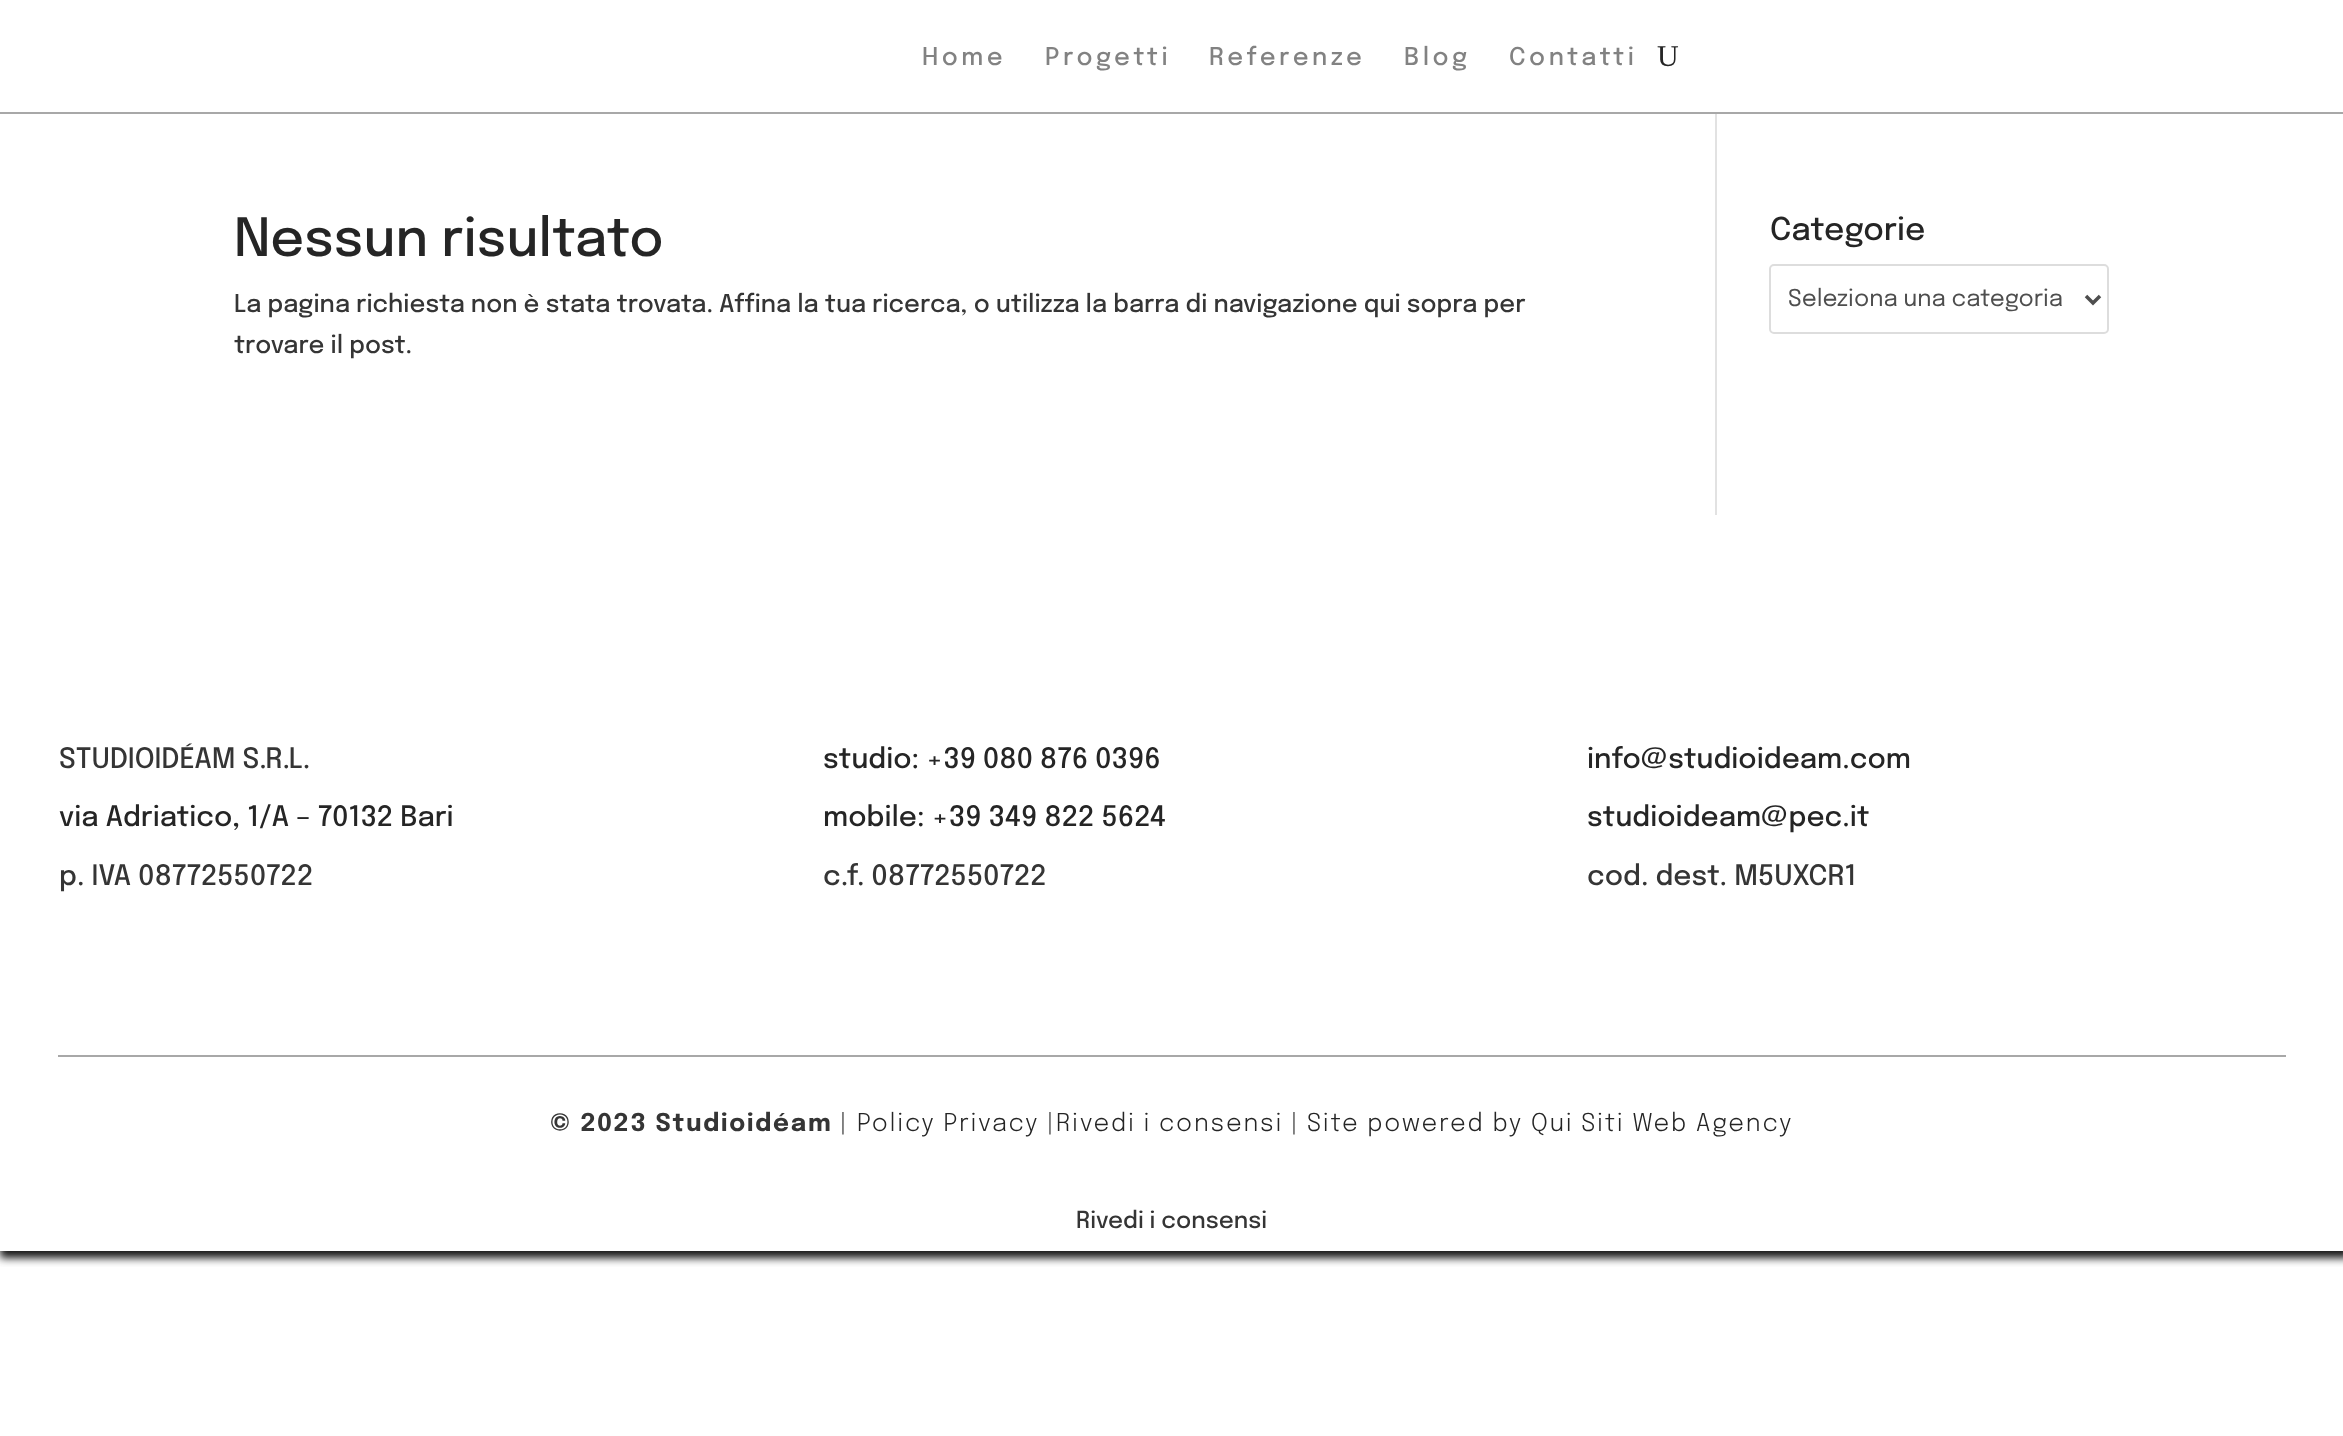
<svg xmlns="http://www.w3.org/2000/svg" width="2343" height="1436">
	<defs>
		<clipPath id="clip1"><rect x="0" y="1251" width="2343" height="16" /></clipPath>
	</defs>
	<rect width="100%" height="100%" fill="#FFFFFF" />
	<rect x="0" y="112" width="2343" height="2" fill="#A8A8A8" />
	<g font-family="Epilogue" font-size="24.5" font-weight="500" letter-spacing="3.5" fill="#828282">
		<text x="922" y="65">Home</text>
		<text x="1045" y="65">Progetti</text>
		<text x="1209" y="65">Referenze</text>
		<text x="1404" y="65">Blog</text>
		<text x="1509" y="65">Contatti</text>
	</g>
	<text x="1657" y="66" font-family="Liberation Serif" font-size="30" fill="#252525">U</text>
	<rect x="1715" y="114" width="2" height="401" fill="#E2E2E2" />
	<text x="234" y="256" font-family="Epilogue" font-size="52.5" font-weight="500" fill="#252525">Nessun risultato</text>
	<g font-family="Epilogue" font-size="24.5" font-weight="500" fill="#353535">
		<text x="234" y="312">La pagina richiesta non è stata trovata. Affina la tua ricerca, o utilizza la barra di navigazione qui sopra per</text>
		<text x="234" y="353">trovare il post.</text>
	</g>
	<text x="1770" y="240" font-family="Epilogue" font-size="31.5" font-weight="500" fill="#252525">Categorie</text>
	<rect x="1770" y="265" width="338" height="68" rx="4" fill="none" stroke="#DDDDDD" stroke-width="2" />
	<path d="M2086 296L2093 303L2100 296" fill="none" stroke="#4E4E4E" stroke-width="3.5" />
	<text x="1788" y="306" font-family="Epilogue" font-size="23.25" fill="#4E4E4E">Seleziona una categoria</text>
	<g clip-path="url(#clip1)">
		<rect x="0" y="1194" width="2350" height="64" fill="#161616" filter="blur(4.5px)" />
	</g>
	<rect x="0" y="1184" width="2343" height="10" fill="#FFFFFF" />
	<text x="59" y="768" font-family="Epilogue" font-size="28" font-weight="500" fill="#353535">STUDIOIDÉAM S.R.L.</text>
	<text x="59" y="826" font-family="Epilogue" font-size="28" font-weight="500" fill="#252525">via Adriatico, 1/A – 70132 Bari</text>
	<text x="59" y="885" font-family="Epilogue" font-size="28" font-weight="500" fill="#353535">p. IVA 08772550722</text>
	<g font-family="Epilogue" font-size="28" font-weight="500" fill="#252525">
		<text x="823" y="768">studio: +39 080 876 0396</text>
		<text x="823" y="826">mobile: +39 349 822 5624</text>
	</g>
	<text x="823" y="885" font-family="Epilogue" font-size="28" font-weight="500" fill="#353535">c.f. 08772550722</text>
	<g font-family="Epilogue" font-size="28" font-weight="500" fill="#252525">
		<text x="1587" y="768">info@studioideam.com</text>
		<text x="1587" y="826">studioideam@pec.it</text>
	</g>
	<text x="1587" y="885" font-family="Epilogue" font-size="28" font-weight="500" fill="#353535">cod. dest. M5UXCR1</text>
	<rect x="58" y="1055" width="2228" height="2" fill="#A8A8A8" />
	<text x="550" y="1131" font-family="Epilogue" font-size="24.5" font-weight="700" letter-spacing="1.75" fill="#353535">© 2023 Studioidéam</text>
	<text x="840" y="1131" font-family="Epilogue" font-size="24.5" font-weight="300" letter-spacing="1.75" fill="#353535">|</text>
	<text x="857" y="1131" font-family="Epilogue" font-size="24.5" font-weight="300" letter-spacing="1.75" fill="#252525">Policy Privacy</text>
	<text x="1047" y="1131" font-family="Epilogue" font-size="24.5" font-weight="300" letter-spacing="1.75" fill="#353535">|</text>
	<text x="1056" y="1131" font-family="Epilogue" font-size="24.5" font-weight="300" letter-spacing="1.75" fill="#252525">Rivedi i consensi</text>
	<text x="1291" y="1131" font-family="Epilogue" font-size="24.5" font-weight="300" letter-spacing="1.75" fill="#353535">|</text>
	<text x="1307" y="1131" font-family="Epilogue" font-size="24.5" font-weight="300" letter-spacing="1.75" fill="#252525">Site powered by Qui Siti Web Agency</text>
	<text x="1076" y="1228" font-family="Epilogue" font-size="23.25" font-weight="500" fill="#353535">Rivedi i consensi</text>
</svg>
